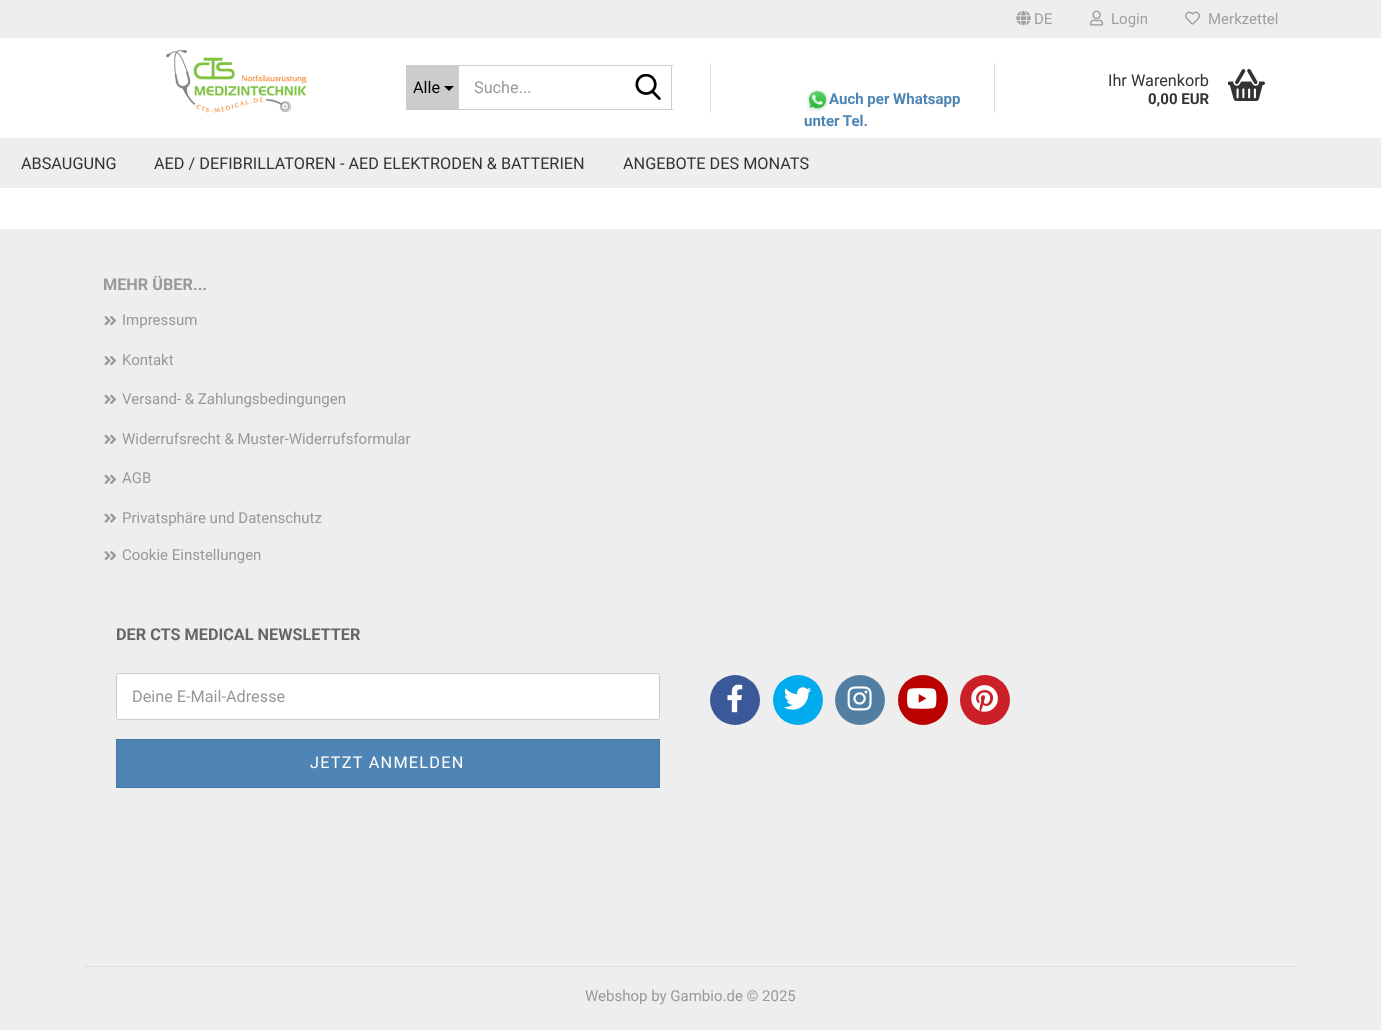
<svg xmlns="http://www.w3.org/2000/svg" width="1381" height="1030">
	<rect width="100%" height="100%" fill="#FFFFFF" />
	<rect x="0" y="0" width="1381" height="38" fill="#EEEEEE" />
	<image x="1016" y="10" width="15" height="16" href="assets/img1.png" />
	<text x="1034" y="24" font-family="Roboto" font-size="15" fill="#9F9F9F">DE</text>
	<image x="1090" y="10" width="14" height="16" href="assets/img2.png" />
	<text x="1111" y="24" font-family="Roboto" font-size="15" fill="#9F9F9F">Login</text>
	<image x="1185" y="11" width="15" height="14" href="assets/img3.png" />
	<text x="1208" y="24" font-family="Roboto" font-size="15" fill="#9F9F9F">Merkzettel</text>
	<image x="166" y="50" width="141" height="63" href="assets/img4.png" />
	<rect x="406" y="65" width="53" height="45" fill="#CCCCCC" />
	<text x="413" y="93" font-family="Roboto" font-size="16.25" fill="#000000">Alle</text>
	<path d="M444 86H454L449 91Z" fill="#000000" />
	<rect x="459" y="65" width="214" height="1" fill="#CCCCCC" />
	<rect x="671" y="65" width="1" height="45" fill="#CCCCCC" />
	<rect x="459" y="109" width="214" height="1" fill="#CCCCCC" />
	<text x="474" y="93" font-family="Roboto" font-size="16.25" fill="#999999">Suche...</text>
	<image x="635" y="74" width="26" height="26" href="assets/img5.png" />
	<rect x="994" y="63" width="1" height="50" fill="#DDDDDD" />
	<text x="1108" y="86" font-family="Roboto" font-size="16.25" fill="#333333">Ihr Warenkorb</text>
	<text x="1148" y="104" font-family="Roboto" font-size="15" font-weight="700" fill="#333333">0,00 EUR</text>
	<image x="1228" y="69" width="37" height="32" href="assets/img6.png" />
	<rect x="710" y="63" width="1" height="50" fill="#DDDDDD" />
	<image x="806" y="88" width="23" height="23" href="assets/img7.png" />
	<g font-family="Roboto" font-size="15" font-weight="700" fill="#4E85B5">
		<text x="829" y="104">Auch per Whatsapp</text>
		<text x="804" y="126">unter Tel.</text>
	</g>
	<rect x="0" y="138" width="1381" height="50" fill="#EEEEEE" />
	<g font-family="Roboto" font-size="16.25" fill="#333333">
		<text x="21" y="169">ABSAUGUNG</text>
		<text x="154" y="169">AED / DEFIBRILLATOREN - AED ELEKTRODEN &amp; BATTERIEN</text>
		<text x="623" y="169">ANGEBOTE DES MONATS</text>
	</g>
	<rect x="0" y="229" width="1381" height="801" fill="#EEEEEE" />
	<rect x="85" y="966" width="1213" height="1" fill="#DDDDDD" />
	<text x="103" y="290" font-family="Roboto" font-size="16.25" font-weight="700" fill="#999999">MEHR ÜBER...</text>
	<image x="104" y="316" width="12" height="10" href="assets/img8.png" />
	<text x="122" y="325" font-family="Roboto" font-size="15" fill="#999999">Impressum</text>
	<image x="104" y="356" width="12" height="10" href="assets/img8.png" />
	<text x="122" y="365" font-family="Roboto" font-size="15" fill="#999999">Kontakt</text>
	<image x="104" y="394" width="12" height="10" href="assets/img9.png" />
	<text x="122" y="404" font-family="Roboto" font-size="15" fill="#999999">Versand- &amp; Zahlungsbedingungen</text>
	<image x="104" y="434" width="12" height="10" href="assets/img9.png" />
	<text x="122" y="444" font-family="Roboto" font-size="15" fill="#999999">Widerrufsrecht &amp; Muster-Widerrufsformular</text>
	<image x="104" y="474" width="12" height="10" href="assets/img9.png" />
	<text x="122" y="483" font-family="Roboto" font-size="15" fill="#999999">AGB</text>
	<image x="104" y="513" width="12" height="10" href="assets/img10.png" />
	<text x="122" y="523" font-family="Roboto" font-size="15" fill="#999999">Privatsphäre und Datenschutz</text>
	<image x="104" y="551" width="12" height="10" href="assets/img8.png" />
	<text x="122" y="560" font-family="Roboto" font-size="15" fill="#999999">Cookie Einstellungen</text>
	<text x="116" y="640" font-family="Roboto" font-size="16.25" font-weight="700" fill="#666666">DER CTS MEDICAL NEWSLETTER</text>
	<rect x="116.5" y="673.5" width="543" height="46" rx="2" fill="#FFFFFF" stroke="#CCCCCC" />
	<text x="132" y="702" font-family="Roboto" font-size="16.25" fill="#999999">Deine E-Mail-Adresse</text>
	<rect x="116.5" y="739.5" width="543" height="48" fill="#4E85B5" stroke="#4578A5" />
	<text x="310" y="768" font-family="Roboto" font-size="16.25" letter-spacing="1.25" fill="#FFFFFF">JETZT ANMELDEN</text>
	<circle cx="735" cy="700" r="25" fill="#3B5998" />
	<image x="727" y="684" width="16" height="29" href="assets/img11.png" />
	<circle cx="798" cy="700" r="25" fill="#00ACED" />
	<image x="783" y="687" width="28" height="23" href="assets/img12.png" />
	<circle cx="860" cy="700" r="25" fill="#517FA4" />
	<image x="847" y="686" width="25" height="25" href="assets/img13.png" />
	<circle cx="923" cy="700" r="25" fill="#BB0000" />
	<image x="907" y="688" width="30" height="21" href="assets/img14.png" />
	<circle cx="985" cy="700" r="25" fill="#CB2027" />
	<image x="971" y="685" width="27" height="27" href="assets/img15.png" />
	<text x="585" y="1001" font-family="Roboto" font-size="15" fill="#999999">Webshop by Gambio.de © 2025</text>
</svg>
